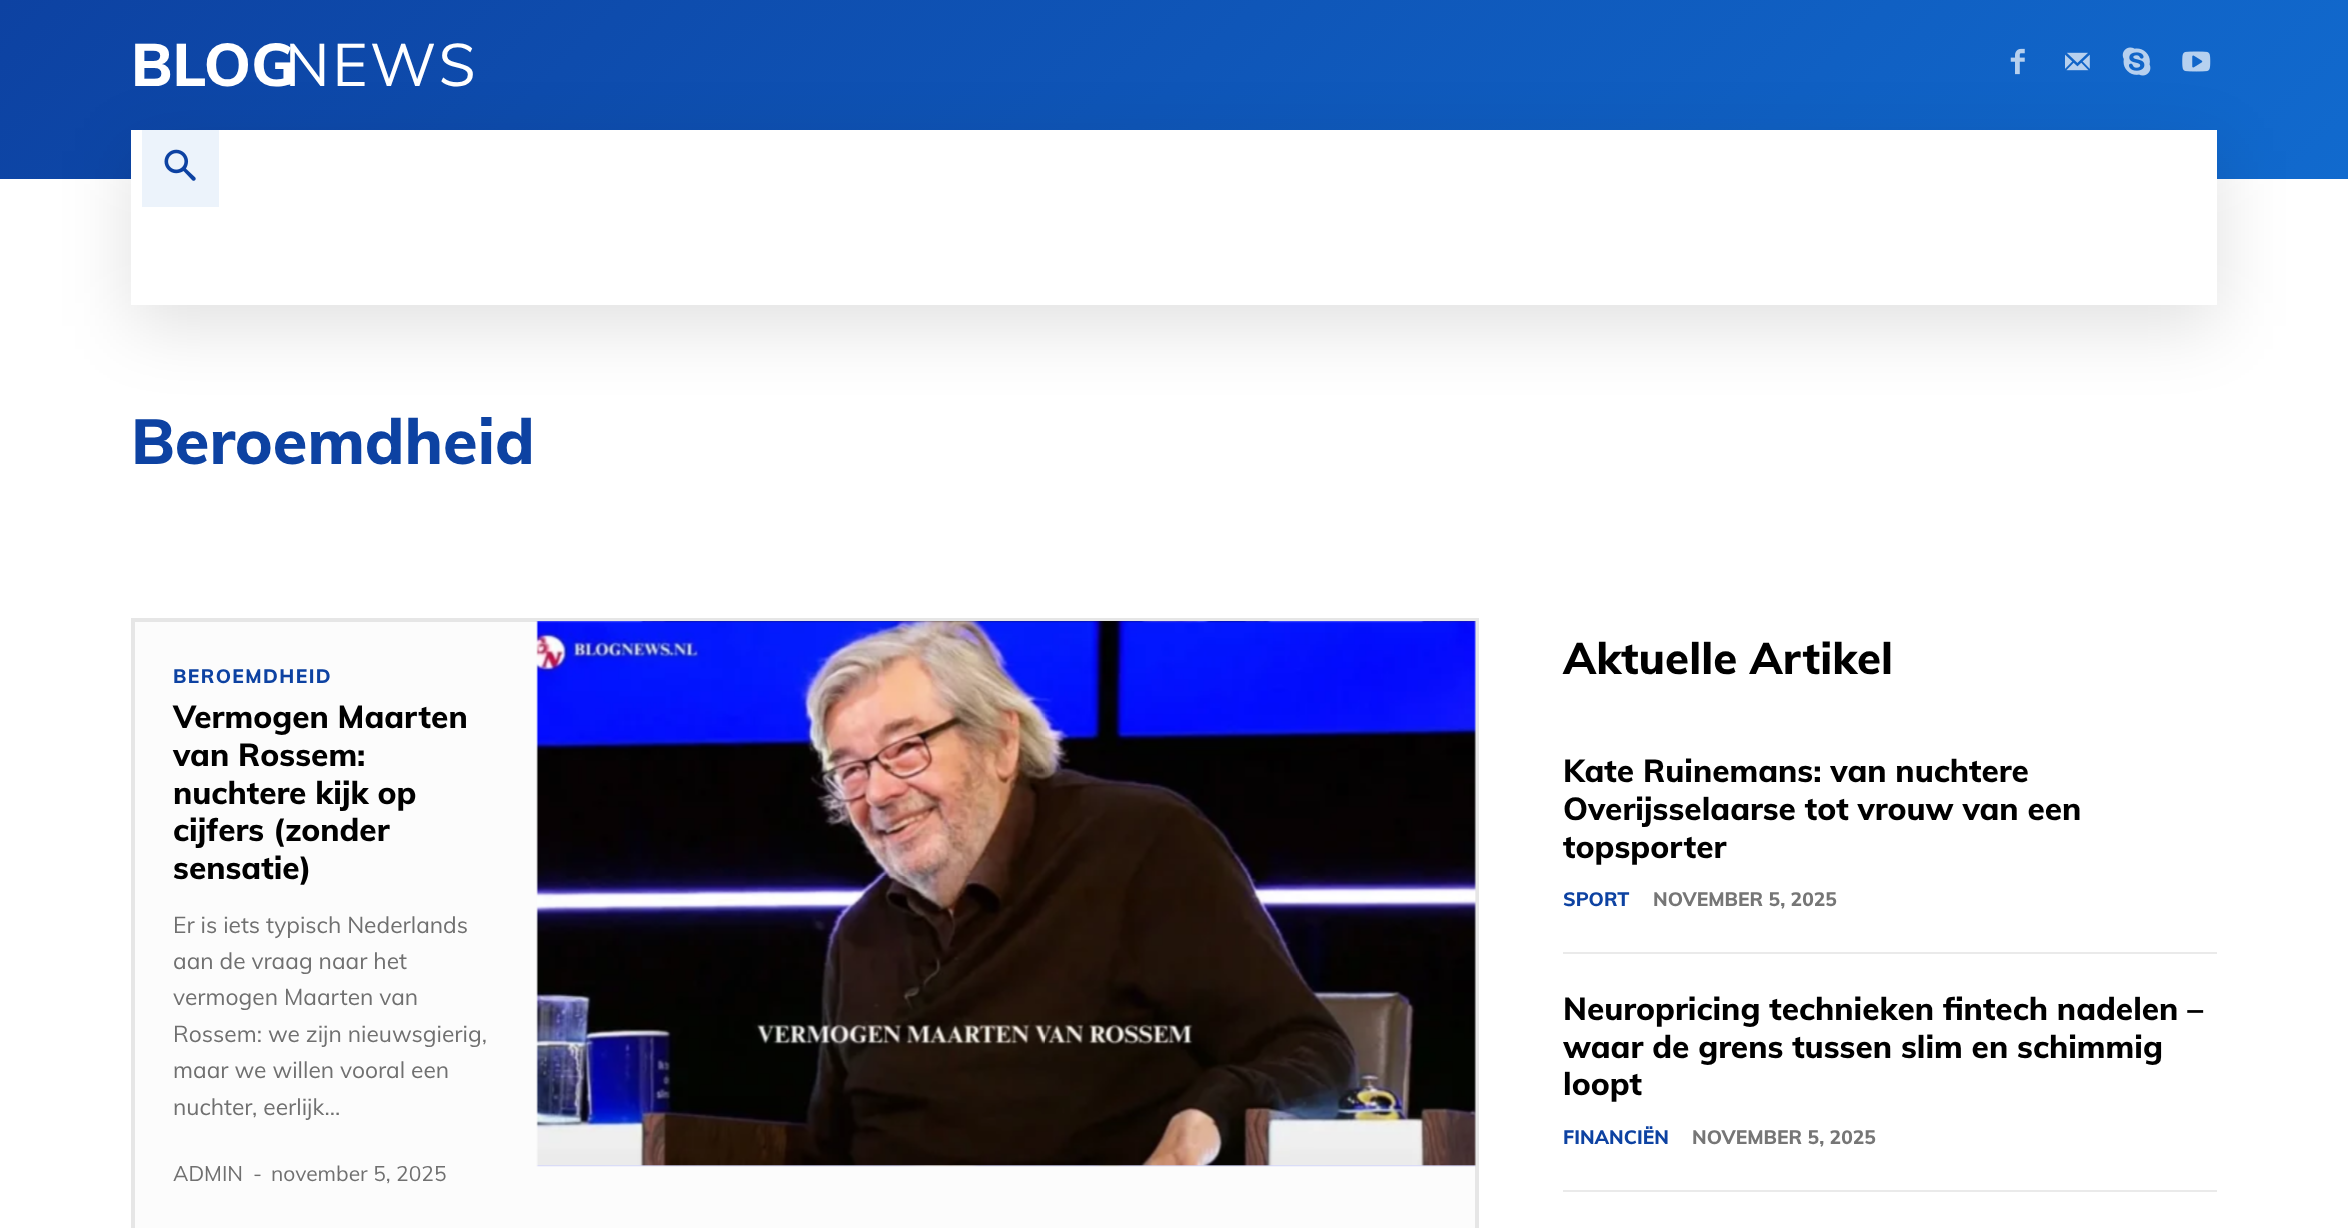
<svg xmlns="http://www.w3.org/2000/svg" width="2348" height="1228">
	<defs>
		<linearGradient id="g1" gradientUnits="userSpaceOnUse" x1="1806" y1="721" x2="543" y2="-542"><stop offset="0" stop-color="#116ACE" /><stop offset="1" stop-color="#0D42A2" /></linearGradient>
	</defs>
	<rect width="100%" height="100%" fill="#FFFFFF" />
	<rect x="0" y="0" width="2348" height="179" fill="url(#g1)" />
	<text x="131" y="86" font-family="Muli" font-size="59.5" font-weight="800" fill="#FFFFFF">BLOG</text>
	<text x="285" y="86" font-family="Muli" font-size="59.5" letter-spacing="3" fill="#FFFFFF">NEWS</text>
	<image x="2010" y="48" width="15" height="27" href="assets/img1.png" />
	<image x="2065" y="52" width="25" height="19" href="assets/img2.png" />
	<image x="2122" y="47" width="29" height="29" href="assets/img3.png" />
	<image x="2182" y="51" width="29" height="21" href="assets/img4.png" />
	<rect x="131" y="151" width="2086" height="175" fill="#000000" fill-opacity="0.12" filter="blur(35px)" />
	<rect x="131" y="130" width="2086" height="175" fill="#FFFFFF" />
	<rect x="142" y="130" width="77" height="77" fill="#ECF3FB" />
	<image x="164" y="149" width="32" height="32" href="assets/img5.png" />
	<text x="131" y="464" font-family="Muli" font-size="63" font-weight="800" fill="#0D42A2">Beroemdheid</text>
	<rect x="133" y="620" width="1344" height="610" fill="#FCFCFC" stroke="#E6E6E6" stroke-width="4" />
	<text x="173" y="683" font-family="Muli" font-size="19.25" font-weight="800" letter-spacing="1.4" fill="#0D42A2">BEROEMDHEID</text>
	<g font-family="Muli" font-size="31.5" font-weight="800" fill="#000000">
		<text x="173" y="728">Vermogen Maarten</text>
		<text x="173" y="766">van Rossem:</text>
		<text x="173" y="804">nuchtere kijk op</text>
		<text x="173" y="841">cijfers (zonder</text>
		<text x="173" y="879">sensatie)</text>
	</g>
	<g font-family="Muli" font-size="22.75" fill="#707070">
		<text x="173" y="933">Er is iets typisch Nederlands</text>
		<text x="173" y="969">aan de vraag naar het</text>
		<text x="173" y="1005">vermogen Maarten van</text>
		<text x="173" y="1042">Rossem: we zijn nieuwsgierig,</text>
		<text x="173" y="1078">maar we willen vooral een</text>
		<text x="173" y="1115">nuchter, eerlijk...</text>
	</g>
	<g font-family="Muli" font-size="21" fill="#707070">
		<text x="173" y="1181">ADMIN</text>
		<text x="253" y="1181">-</text>
		<text x="271" y="1181">november 5, 2025</text>
	</g>
	<image x="536" y="621" width="940" height="546" href="assets/img6.png" />
	<text x="1563" y="674" font-family="Muli" font-size="43.75" font-weight="800" fill="#000000">Aktuelle Artikel</text>
	<g font-family="Muli" font-size="31.5" font-weight="800" fill="#000000">
		<text x="1563" y="782">Kate Ruinemans: van nuchtere</text>
		<text x="1563" y="820">Overijsselaarse tot vrouw van een</text>
		<text x="1563" y="858">topsporter</text>
	</g>
	<text x="1563" y="906" font-family="Muli" font-size="19.25" font-weight="800" fill="#0D42A2">SPORT</text>
	<text x="1653" y="906" font-family="Muli" font-size="19.25" font-weight="800" fill="#767676">NOVEMBER 5, 2025</text>
	<rect x="1563" y="952" width="654" height="2" fill="#EAEAEA" />
	<g font-family="Muli" font-size="31.5" font-weight="800" fill="#000000">
		<text x="1563" y="1020">Neuropricing technieken fintech nadelen –</text>
		<text x="1563" y="1058">waar de grens tussen slim en schimmig</text>
		<text x="1563" y="1095">loopt</text>
	</g>
	<text x="1563" y="1144" font-family="Muli" font-size="19.25" font-weight="800" fill="#0D42A2">FINANCIËN</text>
	<text x="1692" y="1144" font-family="Muli" font-size="19.25" font-weight="800" fill="#767676">NOVEMBER 5, 2025</text>
	<rect x="1563" y="1190" width="654" height="2" fill="#EAEAEA" />
</svg>
